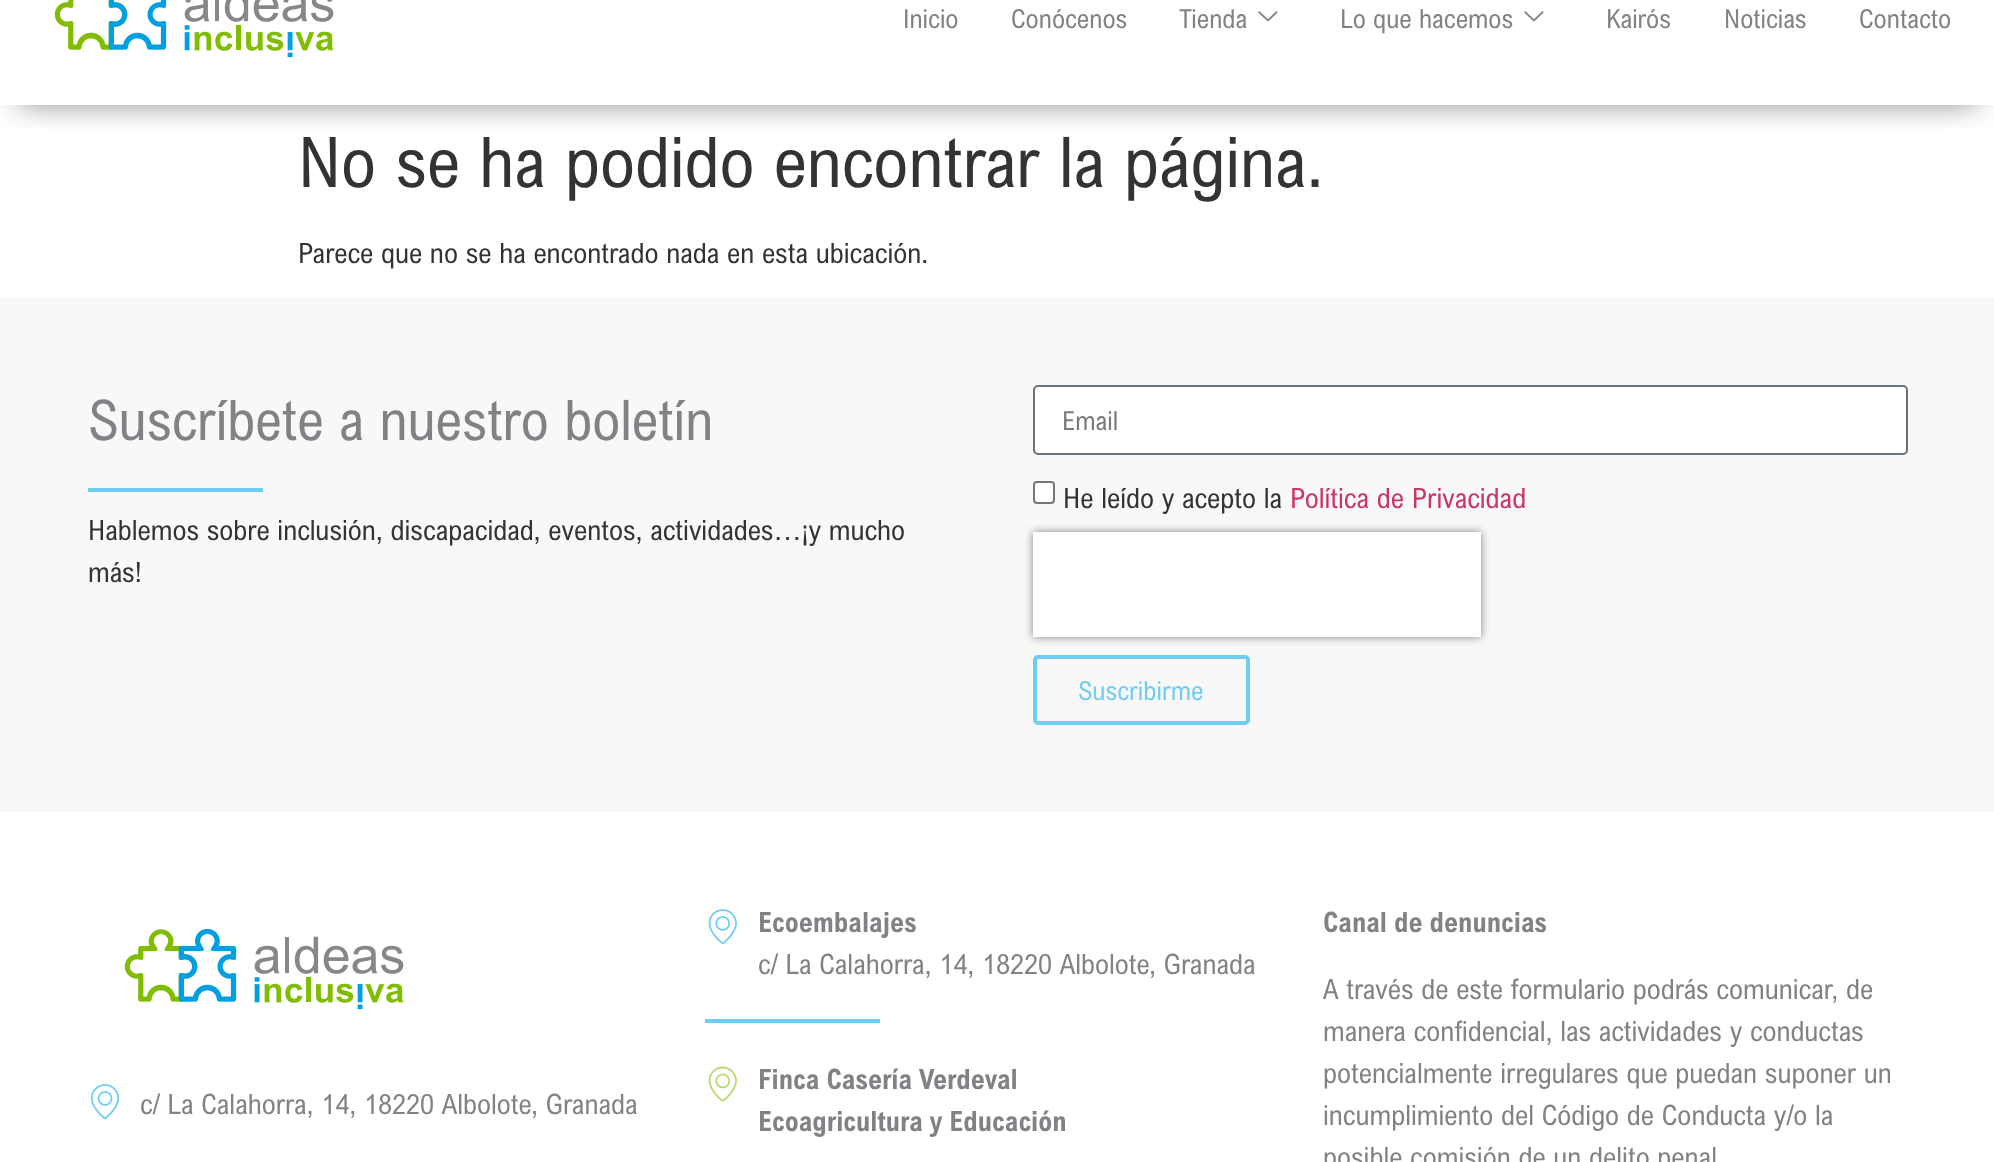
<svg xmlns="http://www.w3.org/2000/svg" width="1994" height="1162">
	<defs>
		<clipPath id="clip1"><rect x="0" y="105" width="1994" height="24" /></clipPath>
		<clipPath id="clip2"><path d="M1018 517H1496V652H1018ZM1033 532H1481V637H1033Z" clip-rule="evenodd" /></clipPath>
	</defs>
	<rect width="100%" height="100%" fill="#FFFFFF" />
	<g clip-path="url(#clip1)">
		<rect x="19" y="-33" width="1957" height="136" fill="#000000" fill-opacity="0.5" filter="blur(15px)" />
	</g>
	<image x="54" y="0" width="280" height="58" href="assets/img1.png" />
	<g font-family="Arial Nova" font-size="26.25" fill="#808285">
		<text x="903" y="28">Inicio</text>
		<text x="1011" y="28">Conócenos</text>
		<text x="1179" y="28">Tienda</text>
	</g>
	<image x="1258" y="11" width="20" height="11" href="assets/img2.png" />
	<text x="1340" y="28" font-family="Arial Nova" font-size="26.25" fill="#808285">Lo que hacemos</text>
	<image x="1524" y="11" width="20" height="11" href="assets/img2.png" />
	<g font-family="Arial Nova" font-size="26.25" fill="#808285">
		<text x="1606" y="28">Kairós</text>
		<text x="1724" y="28">Noticias</text>
		<text x="1859" y="28">Contacto</text>
	</g>
	<text x="298" y="187" font-family="Arial Nova" font-size="70" fill="#333333">No se ha podido encontrar la página.</text>
	<text x="298" y="263" font-family="Arial Nova" font-size="28" fill="#333333">Parece que no se ha encontrado nada en esta ubicación.</text>
	<rect x="0" y="298" width="1994" height="514" fill="#F8F8F8" />
	<text x="88" y="440" font-family="Arial Nova" font-size="56" fill="#808285">Suscríbete a nuestro boletín</text>
	<rect x="88" y="488" width="175" height="4" fill="#6ECDF1" />
	<g font-family="Arial Nova" font-size="28" fill="#333333">
		<text x="88" y="540">Hablemos sobre inclusión, discapacidad, eventos, actividades…¡y mucho</text>
		<text x="88" y="582">más!</text>
	</g>
	<rect x="1034" y="386" width="873" height="68" rx="4" fill="#FFFFFF" stroke="#69727D" stroke-width="2" />
	<text x="1062" y="430" font-family="Arial Nova" font-size="26.25" fill="#797A7C">Email</text>
	<rect x="1034" y="482" width="20" height="21" rx="3" fill="#FFFFFF" stroke="#767676" stroke-width="2" />
	<text x="1063" y="508" font-family="Arial Nova" font-size="28" fill="#333333">He leído y acepto la</text>
	<text x="1290" y="508" font-family="Arial Nova" font-size="28" fill="#CC3366">Política de Privacidad</text>
	<rect x="1033" y="532" width="448" height="105" fill="#FFFFFF" />
	<g clip-path="url(#clip2)">
		<rect x="1033" y="532" width="448" height="105" fill="#808080" filter="blur(4.5px)" />
	</g>
	<rect x="1035" y="657" width="213" height="66" rx="3" fill="none" stroke="#6ECDF1" stroke-width="4" />
	<text x="1078" y="700" font-family="Arial Nova" font-size="26.25" fill="#6ECDF1">Suscribirme</text>
	<image x="124" y="928" width="280" height="82" href="assets/img3.png" />
	<image x="90" y="1084" width="30" height="36" href="assets/img4.png" />
	<text x="140" y="1114" font-family="Arial Nova" font-size="28" fill="#808285">c/ La Calahorra, 14, 18220 Albolote, Granada</text>
	<image x="708" y="909" width="29" height="36" href="assets/img5.png" />
	<text x="758" y="932" font-family="Arial Nova" font-size="28" font-weight="700" fill="#808285">Ecoembalajes</text>
	<text x="758" y="974" font-family="Arial Nova" font-size="28" fill="#808285">c/ La Calahorra, 14, 18220 Albolote, Granada</text>
	<rect x="705" y="1019" width="175" height="4" fill="#6ECDF1" />
	<image x="708" y="1066" width="29" height="36" href="assets/img6.png" />
	<g font-family="Arial Nova" font-size="28" font-weight="700" fill="#808285">
		<text x="758" y="1089">Finca Casería Verdeval</text>
		<text x="758" y="1131">Ecoagricultura y Educación</text>
		<text x="1323" y="932">Canal de denuncias</text>
	</g>
	<g font-family="Arial Nova" font-size="28" fill="#808285">
		<text x="1323" y="999">A través de este formulario podrás comunicar, de</text>
		<text x="1323" y="1041">manera confidencial, las actividades y conductas</text>
		<text x="1323" y="1083">potencialmente irregulares que puedan suponer un</text>
		<text x="1323" y="1125">incumplimiento del Código de Conducta y/o la</text>
		<text x="1323" y="1167">posible comisión de un delito penal</text>
	</g>
</svg>
